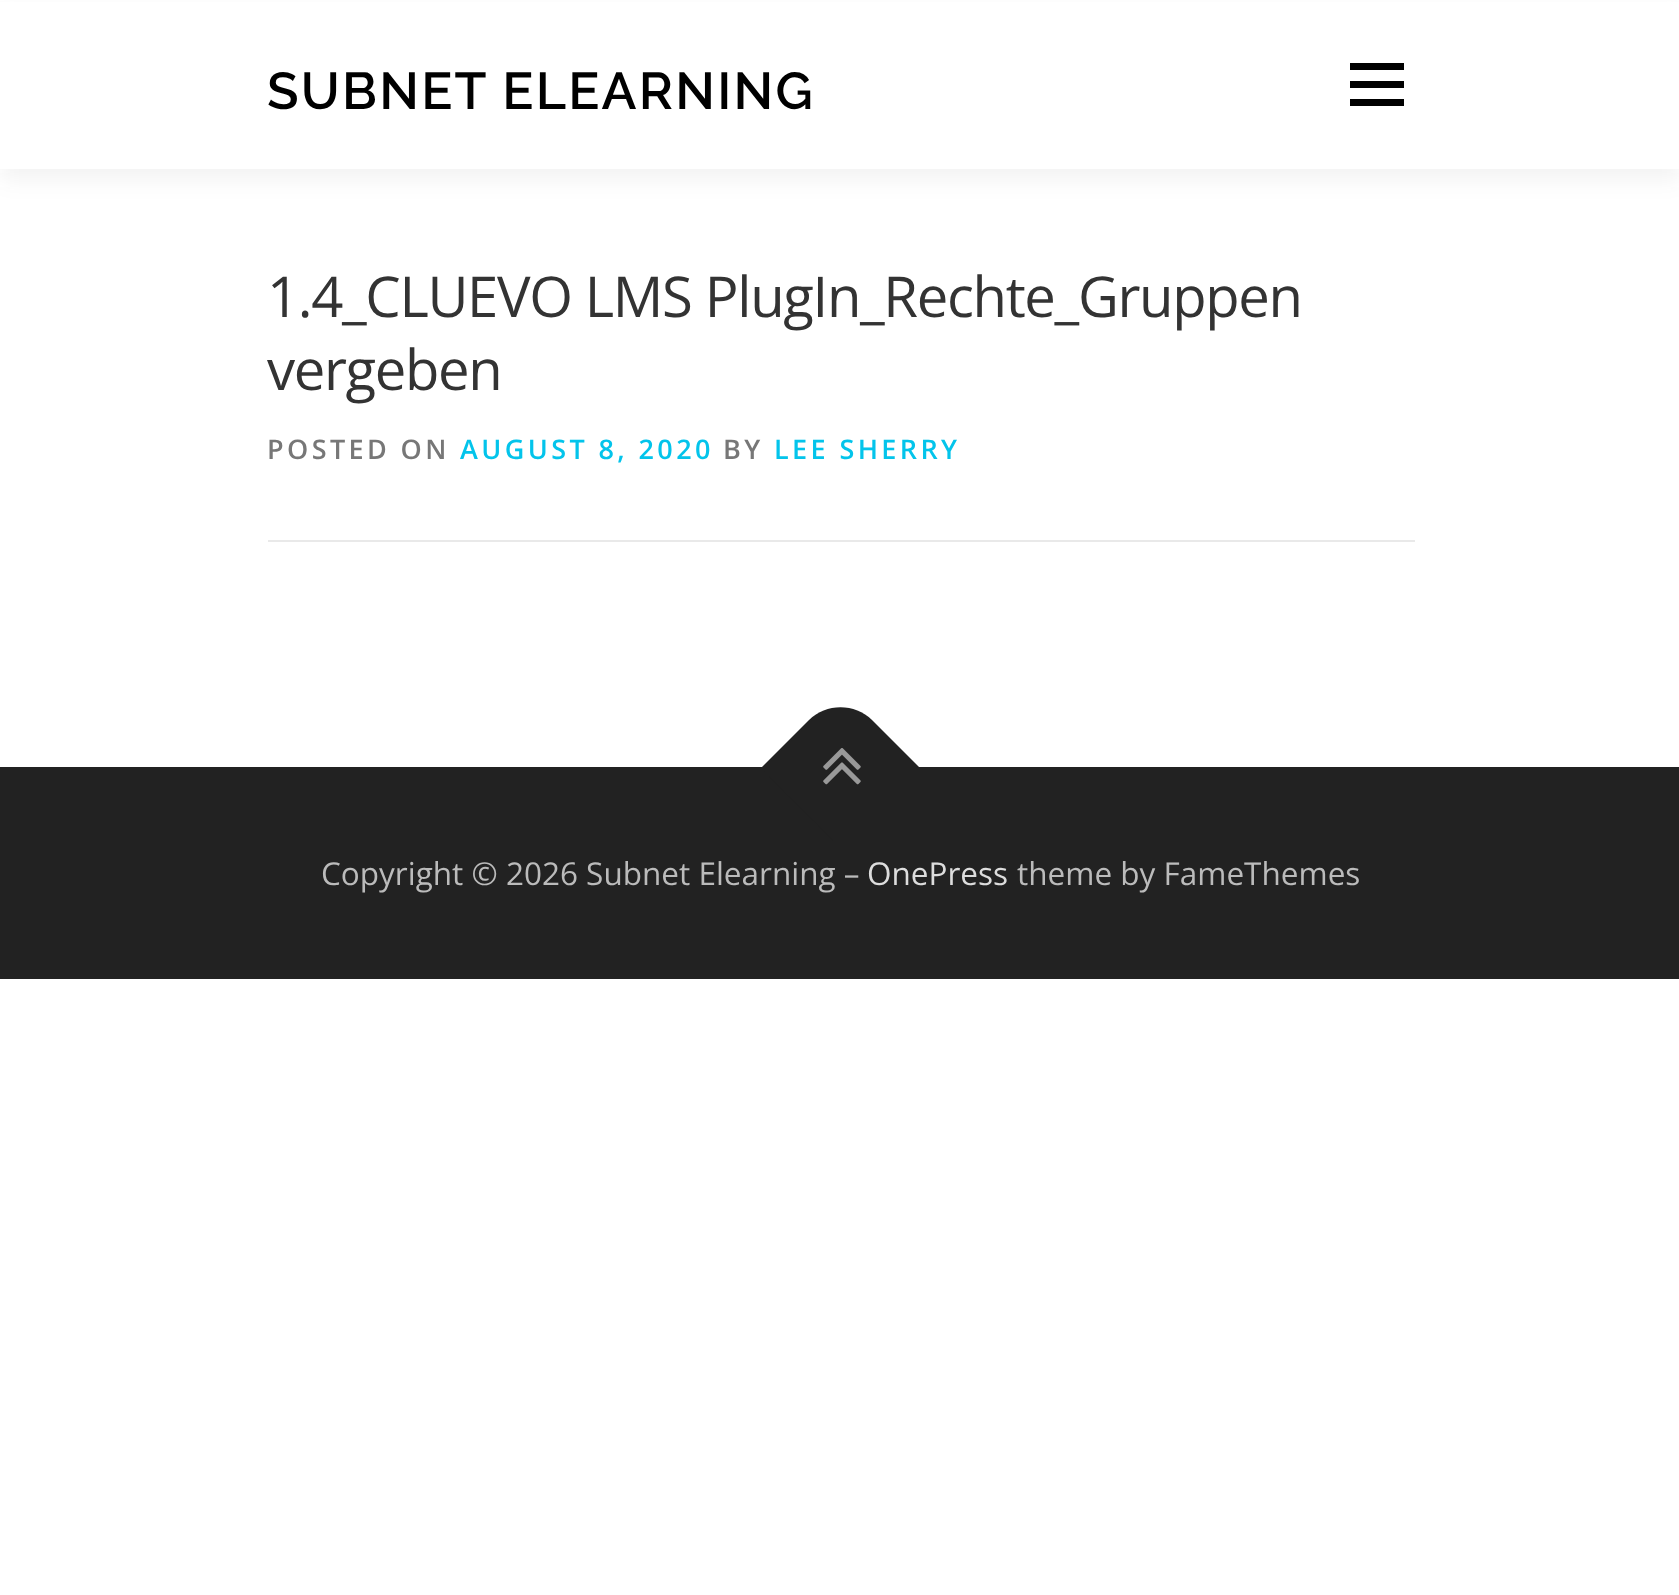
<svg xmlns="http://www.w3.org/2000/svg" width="1679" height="1595">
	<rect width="100%" height="100%" fill="#FFFFFF" />
	<rect x="0" y="11" width="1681" height="169" fill="#323232" fill-opacity="0.06" filter="blur(11px)" />
	<rect x="0" y="2" width="1679" height="167" fill="#FFFFFF" />
	<text x="267" y="109" font-family="Raleway" font-size="51.75" font-weight="600" letter-spacing="2.25" fill="#000000">SUBNET ELEARNING</text>
	<rect x="1350" y="81" width="54" height="7" fill="#000000" />
	<rect x="1350" y="63" width="54" height="7" fill="#000000" />
	<rect x="1350" y="99" width="54" height="7" fill="#000000" />
	<g font-family="Open Sans" font-size="56.25" letter-spacing="-1.35" fill="#333333">
		<text x="267" y="317">1.4_CLUEVO LMS PlugIn_Rechte_Gruppen</text>
		<text x="267" y="390">vergeben</text>
	</g>
	<rect x="268" y="540" width="1147" height="2" fill="#E9E9E9" />
	<text x="267" y="459" font-family="Open Sans" font-size="27" font-weight="600" letter-spacing="3.4" fill="#777777">POSTED ON</text>
	<text x="460" y="459" font-family="Open Sans" font-size="27" font-weight="600" letter-spacing="3.4" fill="#03C4EB">AUGUST 8, 2020</text>
	<text x="723" y="459" font-family="Open Sans" font-size="27" font-weight="600" letter-spacing="3.4" fill="#777777">BY</text>
	<text x="774" y="459" font-family="Open Sans" font-size="27" font-weight="600" letter-spacing="3.4" fill="#03C4EB">LEE SHERRY</text>
	<rect x="0" y="767" width="1679" height="212" fill="#222222" />
	<path d="M761 768L809 720C826 703 855 703 872 720L920 768L840 848Z" fill="#222222" />
	<image x="823" y="748" width="38" height="37" href="assets/img1.png" />
	<text x="321" y="885" font-family="Open Sans" font-size="31.5" fill="#BBBBBB">Copyright © 2026 Subnet Elearning –</text>
	<text x="867" y="885" font-family="Open Sans" font-size="31.5" fill="#DDDDDD">OnePress</text>
	<text x="1017" y="885" font-family="Open Sans" font-size="31.5" fill="#BBBBBB">theme by FameThemes</text>
</svg>
